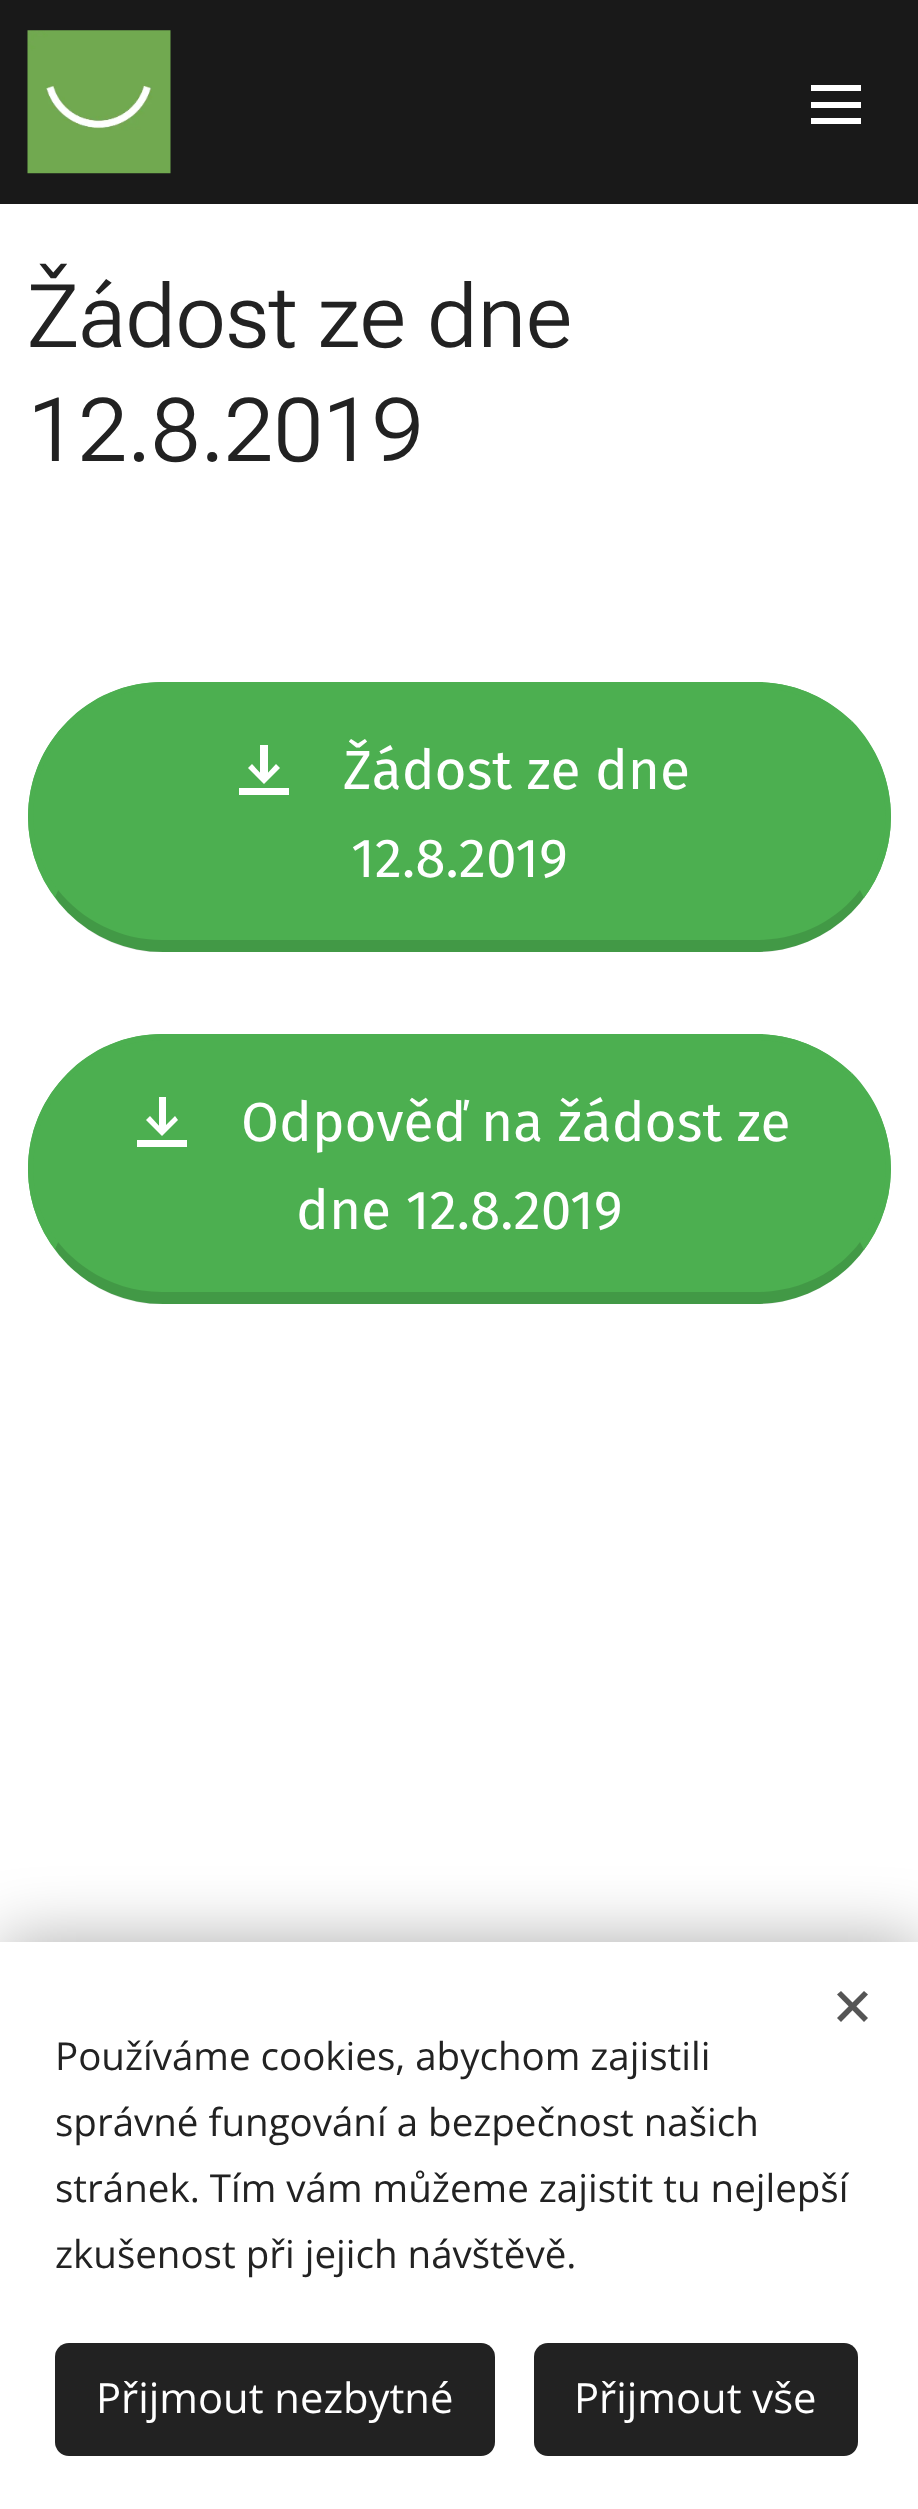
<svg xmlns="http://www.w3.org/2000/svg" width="918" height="2509">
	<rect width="100%" height="100%" fill="#FFFFFF" />
	<rect x="0" y="0" width="918" height="204" fill="#191919" />
	<image x="27" y="30" width="144" height="144" href="assets/img1.png" />
	<rect x="811" y="102" width="50" height="6" fill="#FFFFFF" />
	<rect x="811" y="85" width="50" height="6" fill="#FFFFFF" />
	<rect x="811" y="118" width="50" height="6" fill="#FFFFFF" />
	<g font-family="Roboto Flex" font-size="88" font-weight="300" fill="#222222">
		<text x="28" y="347">Žádost ze dne</text>
		<text x="28" y="461">12.8.2019</text>
	</g>
	<rect x="28" y="682" width="863" height="270" rx="135" fill="#4CAF50" />
	<path d="M162 682C125 682 91 697 67 722L71 725C94 702 127 688 162 688H756C792 688 824 702 848 725L852 721C827 697 794 682 756 682Z" fill="#4CAF50" />
	<path d="M852 721C899 769 904 844 864 898L860 890C899 841 892 769 848 725Z" fill="#4CAF50" />
	<path d="M150 952C111 948 77 928 55 897L58 890C82 920 120 940 162 940H756C799 940 837 921 860 890L864 898C842 928 807 948 768 952Z" fill="#000000" fill-opacity="0.12" />
	<path d="M67 722C20 769 15 844 55 897L58 890C20 840 27 769 71 725Z" fill="#4CAF50" />
	<path d="M264 784L248 768L252 764L264 777L276 764L280 768ZM260 745H268V777H260ZM239 788H289V795H239Z" fill="#FFFFFF" />
	<g font-family="Fira Sans" font-size="55" fill="#FFFFFF">
		<text x="343" y="789">Žádost ze dne</text>
		<text x="351" y="877">12.8.2019</text>
	</g>
	<rect x="28" y="1034" width="863" height="270" rx="135" fill="#4CAF50" />
	<path d="M162 1034C125 1034 91 1049 67 1074L71 1077C94 1054 127 1040 162 1040H756C792 1040 824 1054 848 1077L852 1073C827 1049 794 1034 756 1034Z" fill="#4CAF50" />
	<path d="M852 1073C899 1121 904 1196 864 1250L860 1242C899 1193 892 1121 848 1077Z" fill="#4CAF50" />
	<path d="M150 1304C111 1300 77 1280 55 1249L58 1242C82 1272 120 1292 162 1292H756C799 1292 837 1273 860 1242L864 1250C842 1280 807 1300 768 1304Z" fill="#000000" fill-opacity="0.12" />
	<path d="M67 1074C20 1121 15 1196 55 1249L58 1242C20 1192 27 1121 71 1077Z" fill="#4CAF50" />
	<path d="M162 1136L146 1120L150 1116L162 1129L175 1116L178 1120ZM159 1097H166V1129H159ZM137 1140H187V1147H137Z" fill="#FFFFFF" />
	<g font-family="Fira Sans" font-size="55" fill="#FFFFFF">
		<text x="241" y="1141">Odpověď na žádost ze</text>
		<text x="296" y="1229">dne 12.8.2019</text>
	</g>
	<rect x="0" y="1942" width="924" height="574" fill="#000000" fill-opacity="0.33" filter="blur(34.5px)" />
	<rect x="0" y="1942" width="918" height="567" fill="#FFFFFF" />
	<path d="M837 2018L864 1991L868 1994.5L841 2022Z" fill="#555555" />
	<path d="M841 1991L868 2018L864 2022L837 1994.5Z" fill="#555555" />
	<g font-family="Open Sans" font-size="38.5" fill="#222222">
		<text x="55" y="2070">Používáme cookies, abychom zajistili</text>
		<text x="55" y="2136">správné fungování a bezpečnost našich</text>
		<text x="55" y="2202">stránek. Tím vám můžeme zajistit tu nejlepší</text>
		<text x="55" y="2268">zkušenost při jejich návštěvě.</text>
	</g>
	<rect x="55" y="2343" width="440" height="113" rx="14" fill="#222222" />
	<text x="96" y="2413" font-family="Open Sans" font-size="41.75" fill="#FFFFFF">Přijmout nezbytné</text>
	<rect x="534" y="2343" width="324" height="113" rx="14" fill="#222222" />
	<text x="574" y="2413" font-family="Open Sans" font-size="41.75" fill="#FFFFFF">Přijmout vše</text>
</svg>
